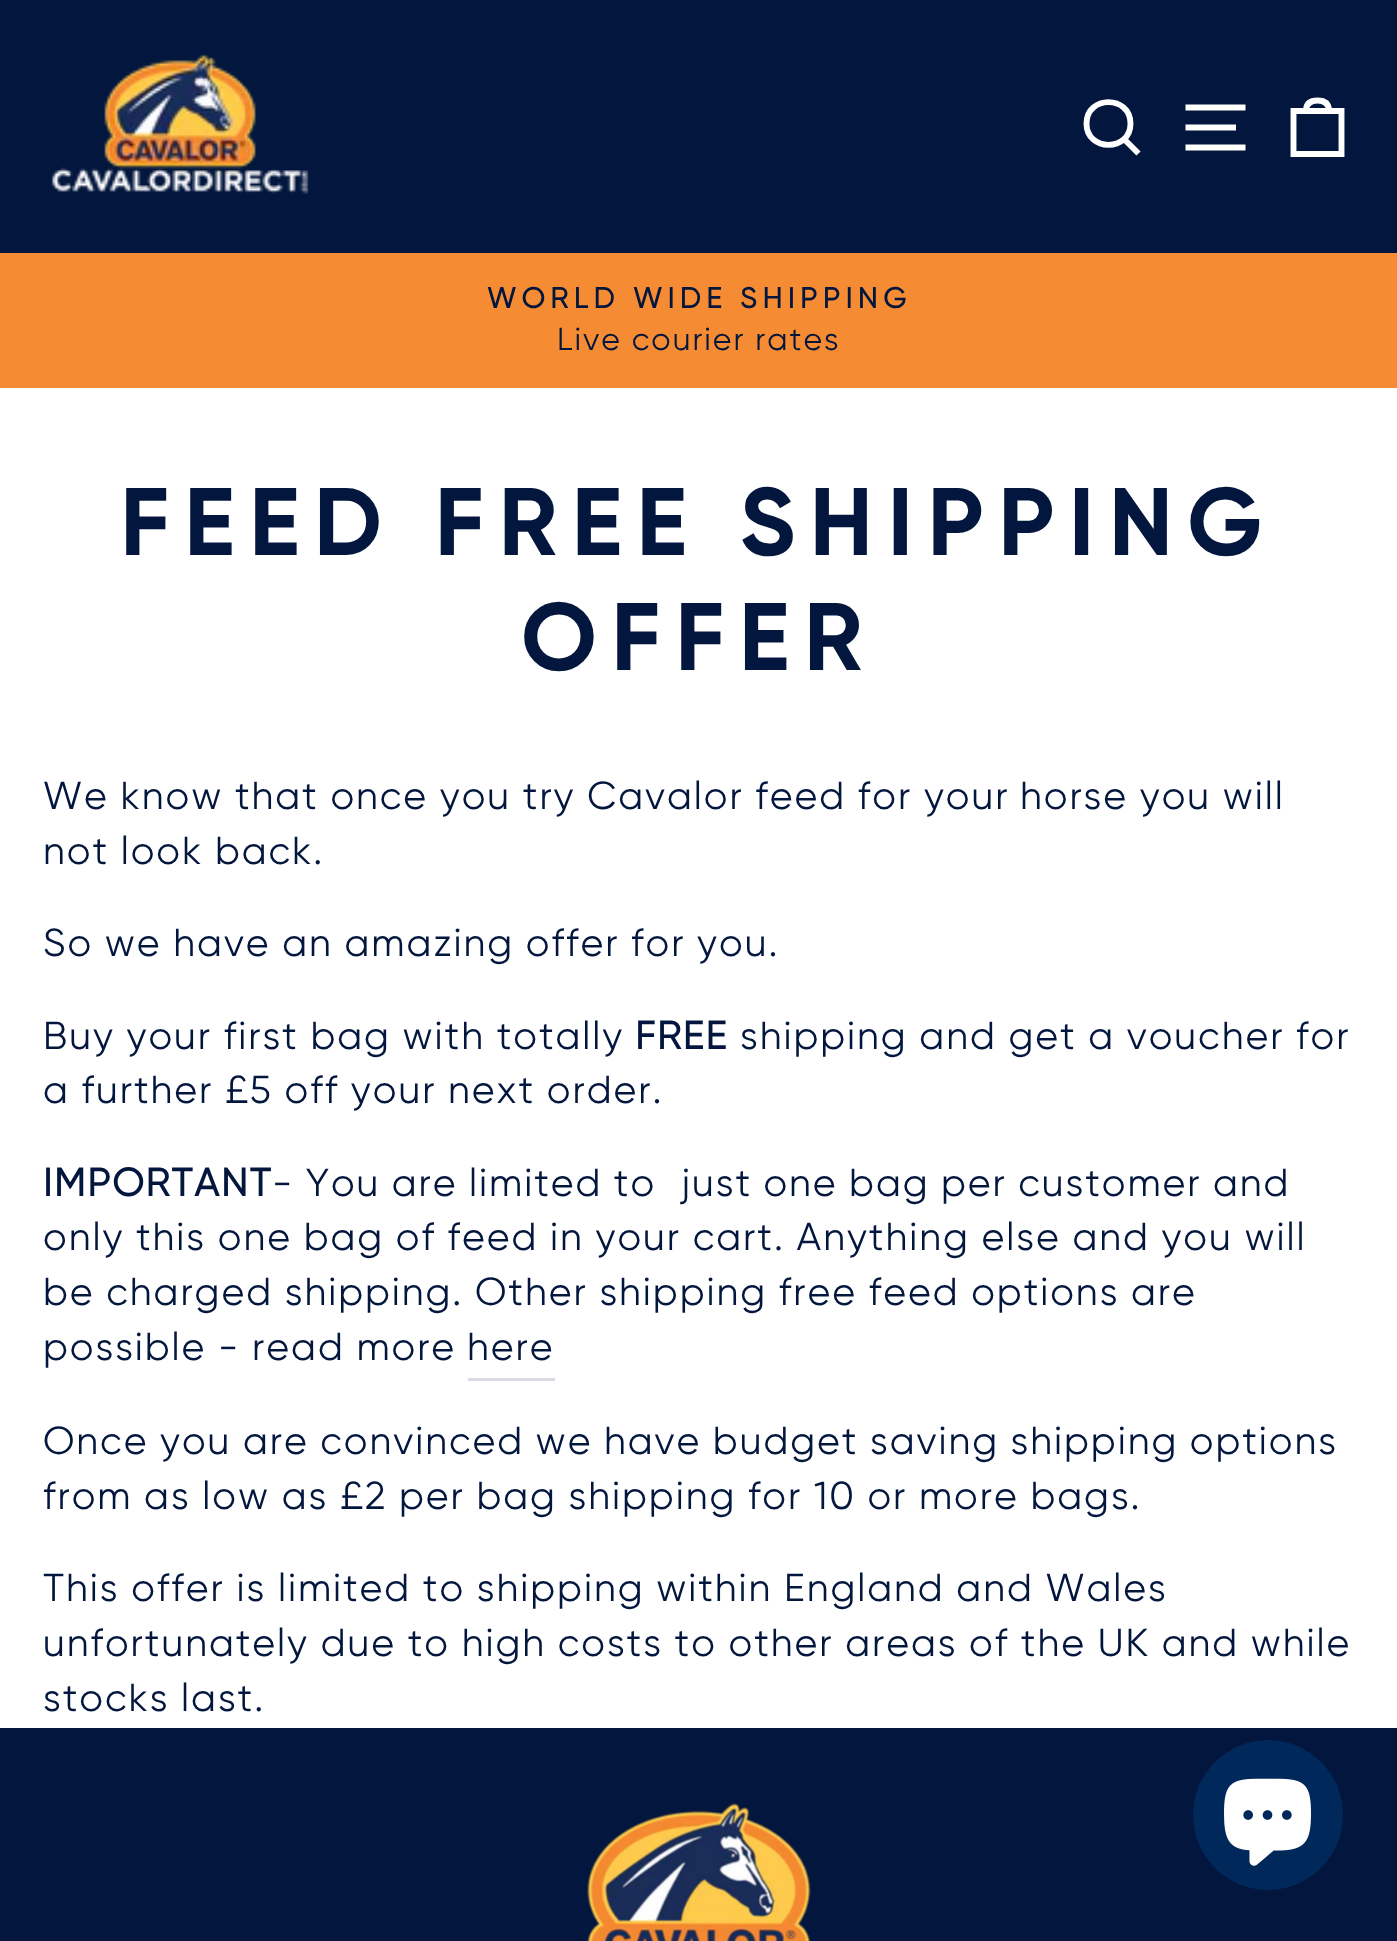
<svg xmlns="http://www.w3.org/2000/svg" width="1397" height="1941">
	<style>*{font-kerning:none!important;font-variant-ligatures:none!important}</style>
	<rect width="100%" height="100%" fill="#FFFFFF" />
	<rect x="0" y="0" width="1397" height="253" fill="#03163D" />
	<image x="51" y="55" width="258" height="139" href="assets/img1.png" />
	<path d="M1130.5 123.5C1130.5 152 1086.5 152 1086.5 123.5C1086.5 95 1130.5 95 1130.5 123.5ZM1138.5 153.5L1124 139" fill="none" stroke="#FFFFFF" stroke-width="5.9" />
	<path d="M1185.5 107.5H1245.5M1185.5 127.5H1236M1185.5 147.5H1245.5" fill="none" stroke="#FFFFFF" stroke-width="5.9" />
	<path d="M1293.5 111H1341.5V154H1293.5ZM1306 111C1306 103 1311 100.5 1317.5 100.5C1324 100.5 1329 103 1329 111" fill="none" stroke="#FFFFFF" stroke-width="5.9" />
	<rect x="0" y="253" width="1397" height="135" fill="#F58B32" />
	<text x="487" y="308" font-family="'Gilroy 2'" font-size="28.75" font-weight="700" letter-spacing="5.75" fill="#03163D">WORLD WIDE SHIPPING</text>
	<text x="557" y="350" font-family="Gilroy" font-size="31.9" letter-spacing="1.95" fill="#03163D">Live courier rates</text>
	<g font-family="Gilroy" font-size="95.6" font-weight="700" letter-spacing="14.3" fill="#03163D">
		<text x="120" y="555">FEED FREE SHIPPING</text>
		<text x="521" y="670">OFFER</text>
	</g>
	<g font-family="Gilroy" font-size="39.1" letter-spacing="1.95" fill="#03163D">
		<text x="43" y="809">We know that once you try Cavalor feed for your</text>
		<text x="1020" y="809">horse you will</text>
		<text x="43" y="864">not look back.</text>
		<text x="43" y="956">So we have an amazing offer for you.</text>
		<text x="43" y="1049">Buy your first bag with totally</text>
	</g>
	<text x="635" y="1049" font-family="'Gilroy 2'" font-size="39.1" font-weight="700" letter-spacing="1.95" fill="#03163D">FREE</text>
	<g font-family="Gilroy" font-size="39.1" letter-spacing="1.95" fill="#03163D">
		<text x="740" y="1049">shipping and get a voucher for</text>
		<text x="43" y="1103">a further £5 off your next order.</text>
	</g>
	<text x="43" y="1196" font-family="'Gilroy 2'" font-size="39.1" font-weight="700" letter-spacing="1.95" fill="#03163D">IMPORTANT</text>
	<g font-family="Gilroy" font-size="39.1" letter-spacing="1.95" fill="#03163D">
		<text x="272" y="1196" word-spacing="-0.25"> - You are limited to</text>
		<text x="681" y="1196" word-spacing="-0.25">just one bag per customer and</text>
		<text x="43" y="1250">only this one bag of feed in your cart. Anything else and you will</text>
		<text x="43" y="1305">be charged shipping. Other shipping free feed options are</text>
		<text x="43" y="1360">possible - read more</text>
	</g>
	<rect x="468" y="1378" width="87" height="3" fill="#D9DCE2" />
	<g font-family="Gilroy" font-size="39.1" letter-spacing="1.95" fill="#03163D">
		<text x="467" y="1360">here</text>
		<text x="43" y="1454" word-spacing="-0.1">Once you are convinced we have budget saving shipping options</text>
		<text x="43" y="1509">from as low as £2 per bag shipping for 10 or more bags.</text>
		<text x="43" y="1601">This offer is limited to shipping within England and Wales</text>
		<text x="43" y="1656">unfortunately due to high costs to other areas</text>
		<text x="969" y="1656">of the UK and while</text>
		<text x="43" y="1711">stocks last.</text>
	</g>
	<rect x="0" y="1728" width="1397" height="213" fill="#03163D" />
	<image x="587" y="1803" width="224" height="138" href="assets/img2.png" />
	<circle cx="1268" cy="1815" r="75" fill="#00285B" />
	<image x="1224" y="1778" width="87" height="88" href="assets/img3.png" />
</svg>
